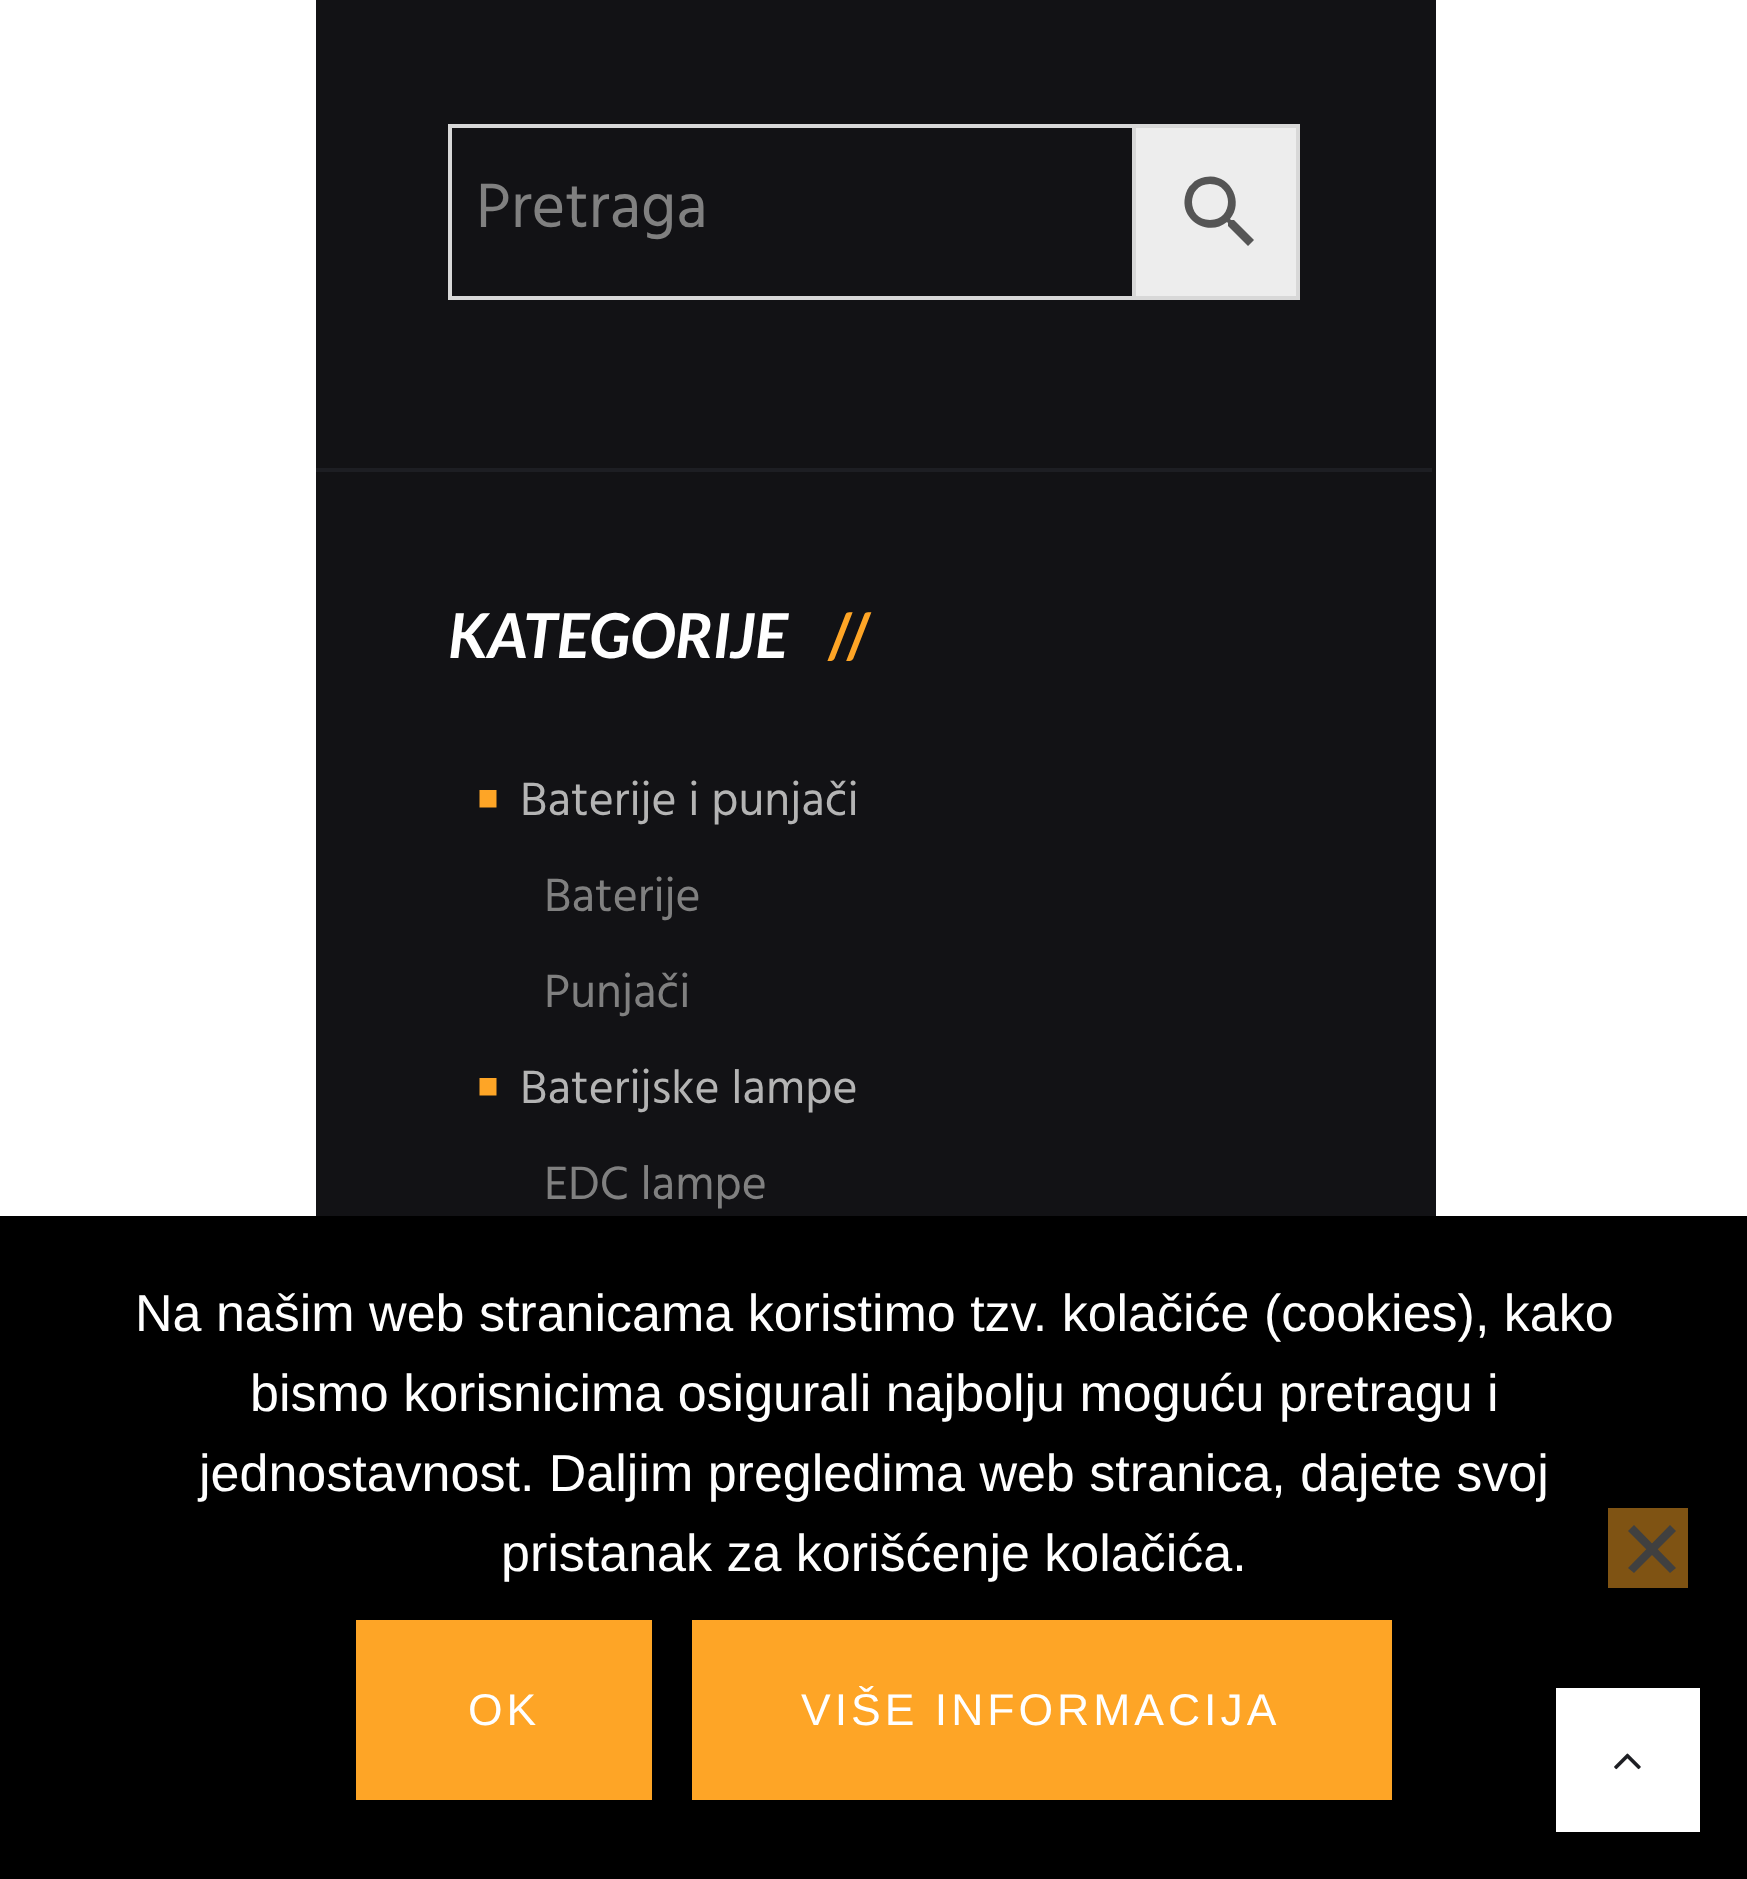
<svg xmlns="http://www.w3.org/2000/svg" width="1747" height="1879">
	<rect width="100%" height="100%" fill="#FFFFFF" />
	<rect x="316" y="0" width="1120" height="1216" fill="#121215" />
	<rect x="1134" y="126" width="164" height="172" fill="#EDEDED" stroke="#D8D8D8" stroke-width="4" />
	<rect x="450" y="126" width="684" height="172" fill="none" stroke="#D8D8D8" stroke-width="4" />
	<text x="476" y="227" font-family="Hind" font-size="64" fill="#808080">Pretraga</text>
	<path d="M1234 220H1231L1230 219C1245 201 1229 172 1205 177C1200 178 1195 180 1192 184C1188 187 1186 192 1185 197C1180 221 1209 237 1227 222L1228 223V226L1248 246L1254 240ZM1210 220C1186 220 1186 184 1210 184C1234 184 1234 220 1210 220Z" fill="#555555" />
	<rect x="316" y="468" width="1116" height="4" fill="#1D1E23" />
	<text x="448" y="658" font-family="Lato" font-size="61.75" font-weight="700" font-style="italic" fill="#FFFFFF">KATEGORIJE</text>
	<text x="828" y="658" font-family="Lato" font-size="61.75" font-weight="700" fill="#FEA526">//</text>
	<path d="M479.5 799V807.5H496.5V790H479.5Z" fill="#FEA526" />
	<text x="520" y="815" font-family="Hind" font-size="48" fill="#B4B4B4">Baterije i punjači</text>
	<g font-family="Hind" font-size="48" fill="#808080">
		<text x="544" y="911">Baterije</text>
		<text x="544" y="1007">Punjači</text>
	</g>
	<path d="M479.5 1087V1095.5H496.5V1078H479.5Z" fill="#FEA526" />
	<text x="520" y="1103" font-family="Hind" font-size="48" fill="#B4B4B4">Baterijske lampe</text>
	<text x="544" y="1199" font-family="Hind" font-size="48" fill="#808080">EDC lampe</text>
	<rect x="0" y="1216" width="1747" height="663" fill="#000000" />
	<g font-family="Liberation Sans" font-size="52" fill="#FFFFFF">
		<text x="135" y="1331">Na našim web stranicama koristimo tzv. kolačiće (cookies), kako</text>
		<text x="250" y="1411">bismo korisnicima osigurali najbolju moguću pretragu i</text>
		<text x="199" y="1491">jednostavnost. Daljim pregledima web stranica, dajete svoj</text>
		<text x="501" y="1571">pristanak za korišćenje kolačića.</text>
	</g>
	<rect x="1608" y="1508" width="80" height="80" fill="#7F5313" />
	<path d="M1670 1525L1676 1531L1634 1573L1628 1568Z" fill="#404040" />
	<path d="M1628 1531L1634 1525L1676 1568L1670 1573Z" fill="#404040" />
	<rect x="356" y="1620" width="296" height="180" fill="#FEA526" />
	<text x="468" y="1725" font-family="Liberation Sans" font-size="44.5" letter-spacing="4" fill="#FFFFFF">OK</text>
	<rect x="692" y="1620" width="700" height="180" fill="#FEA526" />
	<text x="801" y="1725" font-family="Liberation Sans" font-size="44.5" letter-spacing="4" fill="#FFFFFF">VIŠE INFORMACIJA</text>
	<rect x="1556" y="1688" width="144" height="144" fill="#FFFFFF" />
	<image x="1614" y="1753" width="27" height="17" href="assets/img1.png" />
</svg>
